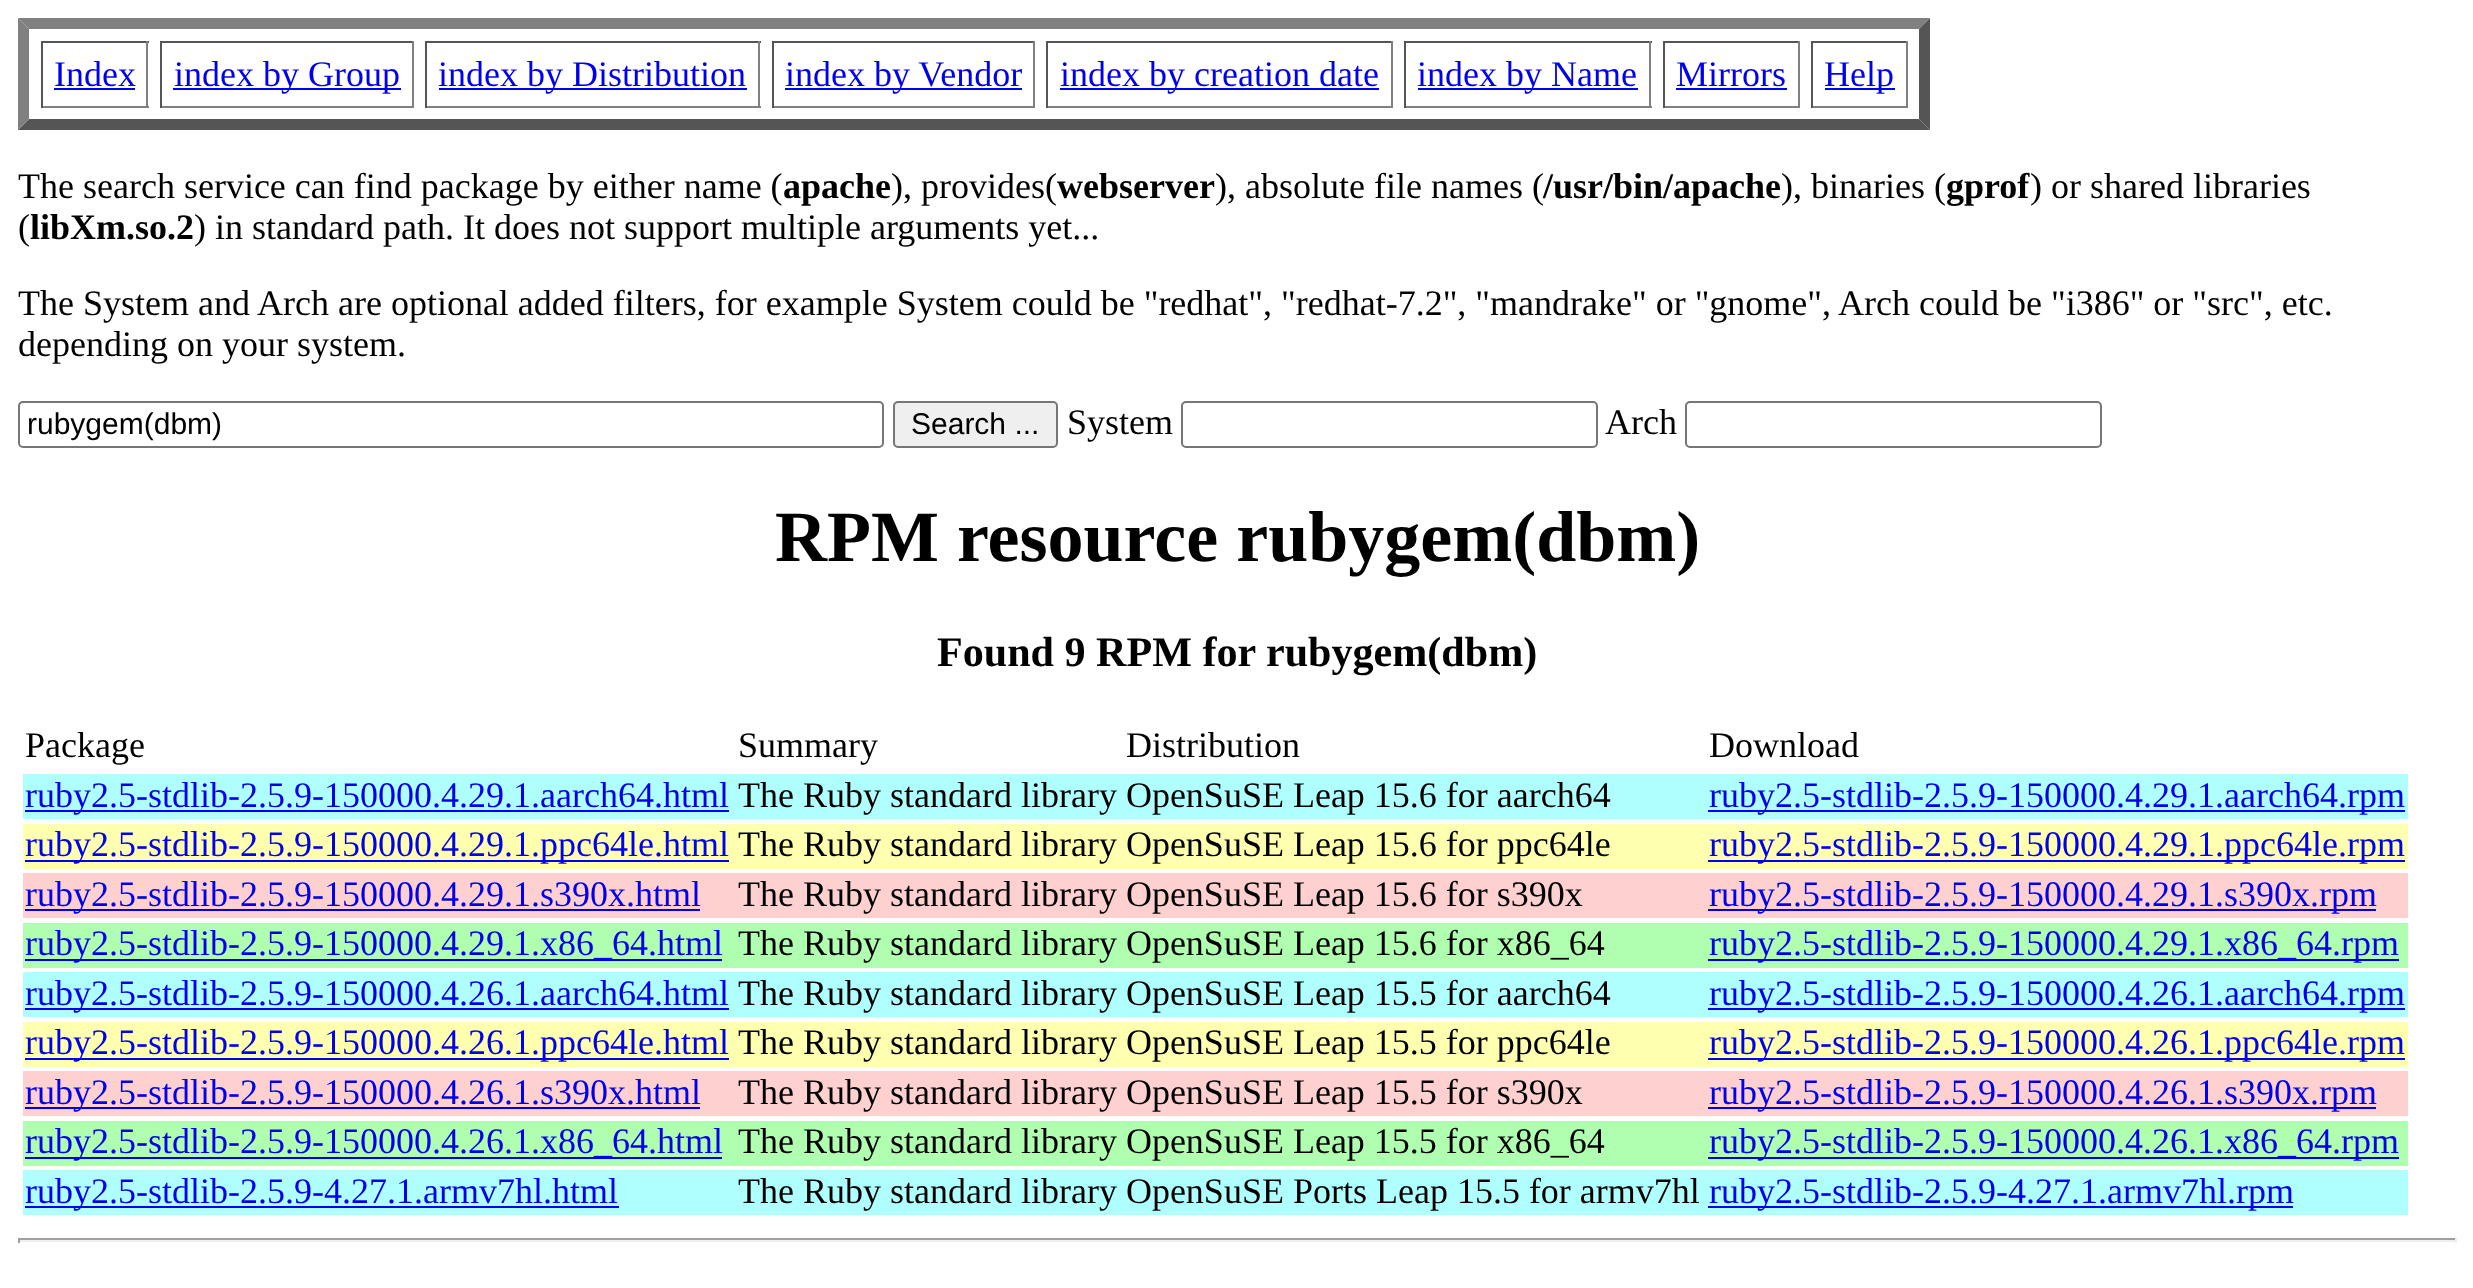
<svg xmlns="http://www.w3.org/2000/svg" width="2473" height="1288">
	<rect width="100%" height="100%" fill="#FFFFFF" />
	<path d="M18 18H1930L1919 29H29Z" fill="#808080" />
	<path d="M1930 18V130L1919 119V29Z" fill="#555555" />
	<path d="M1930 130H18L29 119H1919Z" fill="#555555" />
	<path d="M18 130V18L29 29V119Z" fill="#808080" />
	<rect x="41" y="41" width="108" height="2" fill="#555555" />
	<rect x="146" y="41" width="2" height="67" fill="#808080" />
	<rect x="41" y="106" width="108" height="2" fill="#808080" />
	<rect x="41" y="41" width="2" height="67" fill="#555555" />
	<text x="54" y="86" font-family="Liberation Serif" font-size="36" fill="#0000EE">Index</text>
	<rect x="54" y="88" width="81" height="2" fill="#0000EE" />
	<rect x="160" y="41" width="254" height="2" fill="#555555" />
	<rect x="412" y="41" width="2" height="67" fill="#808080" />
	<rect x="160" y="106" width="254" height="2" fill="#808080" />
	<rect x="160" y="41" width="2" height="67" fill="#555555" />
	<rect x="173" y="88" width="228" height="2" fill="#0000EE" />
	<text x="174" y="86" font-family="Liberation Serif" font-size="36" fill="#0000EE">index by Group</text>
	<rect x="425" y="41" width="336" height="2" fill="#555555" />
	<rect x="758" y="41" width="2" height="67" fill="#808080" />
	<rect x="425" y="106" width="336" height="2" fill="#808080" />
	<rect x="425" y="41" width="2" height="67" fill="#555555" />
	<rect x="439" y="88" width="308" height="2" fill="#0000EE" />
	<text x="438" y="86" font-family="Liberation Serif" font-size="36" fill="#0000EE">index by Distribution</text>
	<rect x="772" y="41" width="263" height="2" fill="#555555" />
	<rect x="1033" y="41" width="2" height="67" fill="#808080" />
	<rect x="772" y="106" width="263" height="2" fill="#808080" />
	<rect x="772" y="41" width="2" height="67" fill="#555555" />
	<rect x="785" y="88" width="237" height="2" fill="#0000EE" />
	<text x="785" y="86" font-family="Liberation Serif" font-size="36" fill="#0000EE">index by Vendor</text>
	<rect x="1046" y="41" width="347" height="2" fill="#555555" />
	<rect x="1391" y="41" width="2" height="67" fill="#808080" />
	<rect x="1046" y="106" width="347" height="2" fill="#808080" />
	<rect x="1046" y="41" width="2" height="67" fill="#555555" />
	<rect x="1060" y="88" width="319" height="2" fill="#0000EE" />
	<text x="1060" y="86" font-family="Liberation Serif" font-size="36" fill="#0000EE">index by creation date</text>
	<rect x="1404" y="41" width="248" height="2" fill="#555555" />
	<rect x="1649" y="41" width="2" height="67" fill="#808080" />
	<rect x="1404" y="106" width="248" height="2" fill="#808080" />
	<rect x="1404" y="41" width="2" height="67" fill="#555555" />
	<rect x="1418" y="88" width="220" height="2" fill="#0000EE" />
	<text x="1417" y="86" font-family="Liberation Serif" font-size="36" fill="#0000EE">index by Name</text>
	<rect x="1663" y="41" width="137" height="2" fill="#555555" />
	<rect x="1798" y="41" width="2" height="67" fill="#808080" />
	<rect x="1663" y="106" width="137" height="2" fill="#808080" />
	<rect x="1663" y="41" width="2" height="67" fill="#555555" />
	<text x="1676" y="86" font-family="Liberation Serif" font-size="36" fill="#0000EE">Mirrors</text>
	<rect x="1676" y="88" width="111" height="2" fill="#0000EE" />
	<rect x="1811" y="41" width="97" height="2" fill="#555555" />
	<rect x="1906" y="41" width="2" height="67" fill="#808080" />
	<rect x="1811" y="106" width="97" height="2" fill="#808080" />
	<rect x="1811" y="41" width="2" height="67" fill="#555555" />
	<rect x="1825" y="88" width="70" height="2" fill="#0000EE" />
	<text x="1824" y="86" font-family="Liberation Serif" font-size="36" fill="#0000EE">Help</text>
	<text x="18" y="198" font-family="Liberation Serif" font-size="36" fill="#000000">The search service can find package by either name (</text>
	<text x="783" y="198" font-family="Liberation Serif" font-size="36" font-weight="700" fill="#000000">apache</text>
	<text x="891" y="198" font-family="Liberation Serif" font-size="36" fill="#000000">), provides(</text>
	<text x="1057" y="198" font-family="Liberation Serif" font-size="36" font-weight="700" fill="#000000">webserver</text>
	<text x="1215" y="198" font-family="Liberation Serif" font-size="36" fill="#000000">), absolute file names (</text>
	<text x="1543" y="198" font-family="Liberation Serif" font-size="36" font-weight="700" fill="#000000">/usr/bin/apache</text>
	<text x="1781" y="198" font-family="Liberation Serif" font-size="36" fill="#000000">), binaries (</text>
	<text x="1946" y="198" font-family="Liberation Serif" font-size="36" font-weight="700" fill="#000000">gprof</text>
	<g font-family="Liberation Serif" font-size="36" fill="#000000">
		<text x="2030" y="198">) or shared libraries</text>
		<text x="18" y="239">(</text>
	</g>
	<text x="30" y="239" font-family="Liberation Serif" font-size="36" font-weight="700" fill="#000000">libXm.so.2</text>
	<g font-family="Liberation Serif" font-size="36" fill="#000000">
		<text x="194" y="239">) in standard path. It does not support multiple arguments yet...</text>
		<text x="18" y="315">The System and Arch are optional added filters, for example System could be "redhat", "redhat-7.2", "mandrake" or "gnome", Arch could be "i386" or "src", etc.</text>
		<text x="18" y="356">depending on your system.</text>
	</g>
	<rect x="19" y="402" width="864" height="45" rx="4" fill="none" stroke="#767676" stroke-width="2" />
	<text x="27" y="434" font-family="Liberation Sans" font-size="30" fill="#000000">rubygem(dbm)</text>
	<rect x="894" y="402" width="163" height="45" rx="4" fill="#EFEFEF" stroke="#767676" stroke-width="2" />
	<text x="911" y="434" font-family="Liberation Sans" font-size="30" fill="#000000">Search ...</text>
	<text x="1067" y="434" font-family="Liberation Serif" font-size="36" fill="#000000">System</text>
	<rect x="1182" y="402" width="415" height="45" rx="4" fill="none" stroke="#767676" stroke-width="2" />
	<text x="1605" y="434" font-family="Liberation Serif" font-size="36" fill="#000000">Arch</text>
	<rect x="1686" y="402" width="415" height="45" rx="4" fill="none" stroke="#767676" stroke-width="2" />
	<text x="775" y="561" font-family="Liberation Serif" font-size="72" font-weight="700" fill="#000000">RPM resource rubygem(dbm)</text>
	<text x="937" y="666" font-family="Liberation Serif" font-size="42.1" font-weight="700" fill="#000000">Found 9 RPM for rubygem(dbm)</text>
	<g font-family="Liberation Serif" font-size="36" fill="#000000">
		<text x="25" y="757">Package</text>
		<text x="738" y="757">Summary</text>
		<text x="1126" y="757">Distribution</text>
		<text x="1709" y="757">Download</text>
	</g>
	<rect x="23" y="774" width="2385" height="45" fill="#B0FFFF" />
	<rect x="25" y="810" width="704" height="2" fill="#0000EE" />
	<text x="25" y="807" font-family="Liberation Serif" font-size="36" fill="#0000EE">ruby2.5-stdlib-2.5.9-150000.4.29.1.aarch64.html</text>
	<text x="738" y="807" font-family="Liberation Serif" font-size="36" fill="#000000">The Ruby standard library OpenSuSE Leap 15.6 for aarch64</text>
	<rect x="1708" y="810" width="697" height="2" fill="#0000EE" />
	<text x="1709" y="807" font-family="Liberation Serif" font-size="36" fill="#0000EE">ruby2.5-stdlib-2.5.9-150000.4.29.1.aarch64.rpm</text>
	<rect x="23" y="824" width="2385" height="45" fill="#FFFFB0" />
	<rect x="25" y="860" width="704" height="2" fill="#0000EE" />
	<text x="25" y="856" font-family="Liberation Serif" font-size="36" fill="#0000EE">ruby2.5-stdlib-2.5.9-150000.4.29.1.ppc64le.html</text>
	<text x="738" y="856" font-family="Liberation Serif" font-size="36" fill="#000000">The Ruby standard library OpenSuSE Leap 15.6 for ppc64le</text>
	<rect x="1708" y="860" width="697" height="2" fill="#0000EE" />
	<text x="1709" y="856" font-family="Liberation Serif" font-size="36" fill="#0000EE">ruby2.5-stdlib-2.5.9-150000.4.29.1.ppc64le.rpm</text>
	<rect x="23" y="873" width="2385" height="45" fill="#FFD0D0" />
	<rect x="25" y="909" width="675" height="2" fill="#0000EE" />
	<text x="25" y="906" font-family="Liberation Serif" font-size="36" fill="#0000EE">ruby2.5-stdlib-2.5.9-150000.4.29.1.s390x.html</text>
	<text x="738" y="906" font-family="Liberation Serif" font-size="36" fill="#000000">The Ruby standard library OpenSuSE Leap 15.6 for s390x</text>
	<rect x="1708" y="909" width="668" height="2" fill="#0000EE" />
	<text x="1709" y="906" font-family="Liberation Serif" font-size="36" fill="#0000EE">ruby2.5-stdlib-2.5.9-150000.4.29.1.s390x.rpm</text>
	<rect x="23" y="923" width="2385" height="45" fill="#B0FFB0" />
	<rect x="25" y="959" width="697" height="2" fill="#0000EE" />
	<text x="25" y="955" font-family="Liberation Serif" font-size="36" fill="#0000EE">ruby2.5-stdlib-2.5.9-150000.4.29.1.x86_64.html</text>
	<text x="738" y="955" font-family="Liberation Serif" font-size="36" fill="#000000">The Ruby standard library OpenSuSE Leap 15.6 for x86_64</text>
	<rect x="1708" y="959" width="691" height="2" fill="#0000EE" />
	<text x="1709" y="955" font-family="Liberation Serif" font-size="36" fill="#0000EE">ruby2.5-stdlib-2.5.9-150000.4.29.1.x86_64.rpm</text>
	<rect x="23" y="972" width="2385" height="45" fill="#B0FFFF" />
	<rect x="25" y="1008" width="704" height="2" fill="#0000EE" />
	<text x="25" y="1005" font-family="Liberation Serif" font-size="36" fill="#0000EE">ruby2.5-stdlib-2.5.9-150000.4.26.1.aarch64.html</text>
	<text x="738" y="1005" font-family="Liberation Serif" font-size="36" fill="#000000">The Ruby standard library OpenSuSE Leap 15.5 for aarch64</text>
	<rect x="1708" y="1008" width="697" height="2" fill="#0000EE" />
	<text x="1709" y="1005" font-family="Liberation Serif" font-size="36" fill="#0000EE">ruby2.5-stdlib-2.5.9-150000.4.26.1.aarch64.rpm</text>
	<rect x="23" y="1022" width="2385" height="45" fill="#FFFFB0" />
	<rect x="25" y="1058" width="704" height="2" fill="#0000EE" />
	<text x="25" y="1054" font-family="Liberation Serif" font-size="36" fill="#0000EE">ruby2.5-stdlib-2.5.9-150000.4.26.1.ppc64le.html</text>
	<text x="738" y="1054" font-family="Liberation Serif" font-size="36" fill="#000000">The Ruby standard library OpenSuSE Leap 15.5 for ppc64le</text>
	<rect x="1708" y="1058" width="697" height="2" fill="#0000EE" />
	<text x="1709" y="1054" font-family="Liberation Serif" font-size="36" fill="#0000EE">ruby2.5-stdlib-2.5.9-150000.4.26.1.ppc64le.rpm</text>
	<rect x="23" y="1071" width="2385" height="45" fill="#FFD0D0" />
	<rect x="25" y="1107" width="675" height="2" fill="#0000EE" />
	<text x="25" y="1104" font-family="Liberation Serif" font-size="36" fill="#0000EE">ruby2.5-stdlib-2.5.9-150000.4.26.1.s390x.html</text>
	<text x="738" y="1104" font-family="Liberation Serif" font-size="36" fill="#000000">The Ruby standard library OpenSuSE Leap 15.5 for s390x</text>
	<rect x="1708" y="1107" width="668" height="2" fill="#0000EE" />
	<text x="1709" y="1104" font-family="Liberation Serif" font-size="36" fill="#0000EE">ruby2.5-stdlib-2.5.9-150000.4.26.1.s390x.rpm</text>
	<rect x="23" y="1121" width="2385" height="45" fill="#B0FFB0" />
	<rect x="25" y="1157" width="697" height="2" fill="#0000EE" />
	<text x="25" y="1153" font-family="Liberation Serif" font-size="36" fill="#0000EE">ruby2.5-stdlib-2.5.9-150000.4.26.1.x86_64.html</text>
	<text x="738" y="1153" font-family="Liberation Serif" font-size="36" fill="#000000">The Ruby standard library OpenSuSE Leap 15.5 for x86_64</text>
	<rect x="1708" y="1157" width="691" height="2" fill="#0000EE" />
	<text x="1709" y="1153" font-family="Liberation Serif" font-size="36" fill="#0000EE">ruby2.5-stdlib-2.5.9-150000.4.26.1.x86_64.rpm</text>
	<rect x="23" y="1170" width="2385" height="45" fill="#B0FFFF" />
	<rect x="25" y="1206" width="594" height="2" fill="#0000EE" />
	<text x="25" y="1203" font-family="Liberation Serif" font-size="36" fill="#0000EE">ruby2.5-stdlib-2.5.9-4.27.1.armv7hl.html</text>
	<text x="738" y="1203" font-family="Liberation Serif" font-size="36" fill="#000000">The Ruby standard library OpenSuSE Ports Leap 15.5 for armv7hl</text>
	<rect x="1708" y="1206" width="585" height="2" fill="#0000EE" />
	<text x="1709" y="1203" font-family="Liberation Serif" font-size="36" fill="#0000EE">ruby2.5-stdlib-2.5.9-4.27.1.armv7hl.rpm</text>
	<rect x="18" y="1238" width="2439" height="2" fill="#9F9F9F" />
	<rect x="2455" y="1238" width="2" height="5" fill="#EEEEEE" />
	<rect x="18" y="1240" width="2439" height="2" fill="#EEEEEE" />
	<rect x="18" y="1238" width="2" height="5" fill="#9F9F9F" />
</svg>
